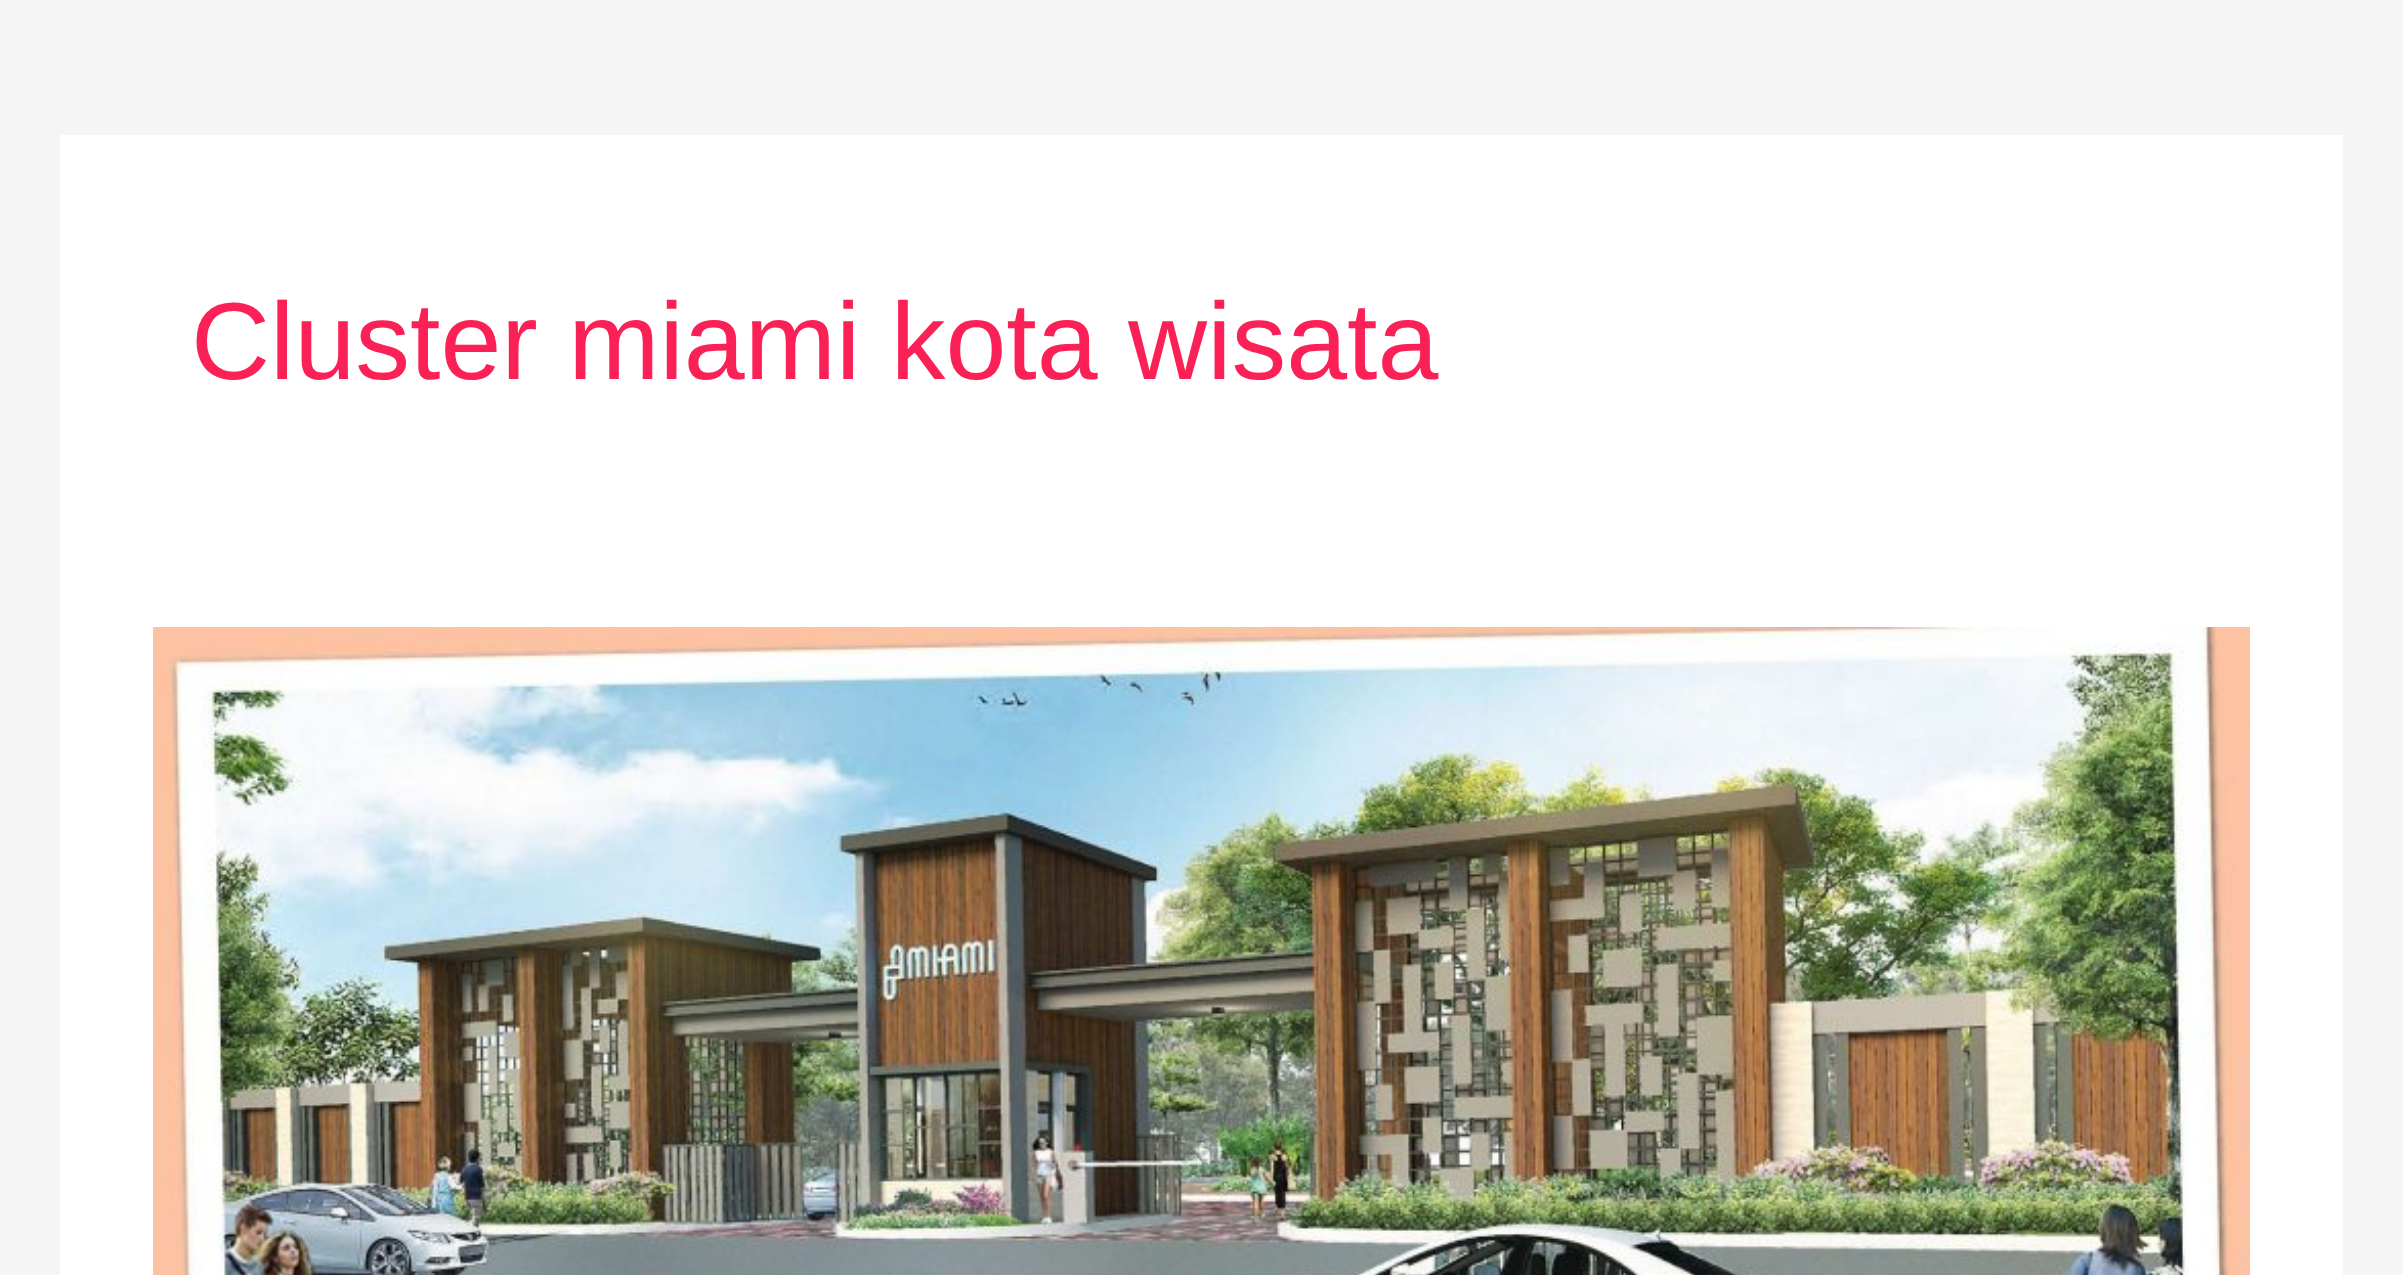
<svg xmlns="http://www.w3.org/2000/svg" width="2403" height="1275">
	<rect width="100%" height="100%" fill="#F5F5F5" />
	<rect x="60" y="135" width="2283" height="1140" fill="#FFFFFF" />
	<text x="191" y="379" font-family="Liberation Sans" font-size="109.5" fill="#FB2056">Cluster miami kota wisata</text>
	<image x="153" y="627" width="2097" height="648" href="assets/img1.png" />
</svg>
